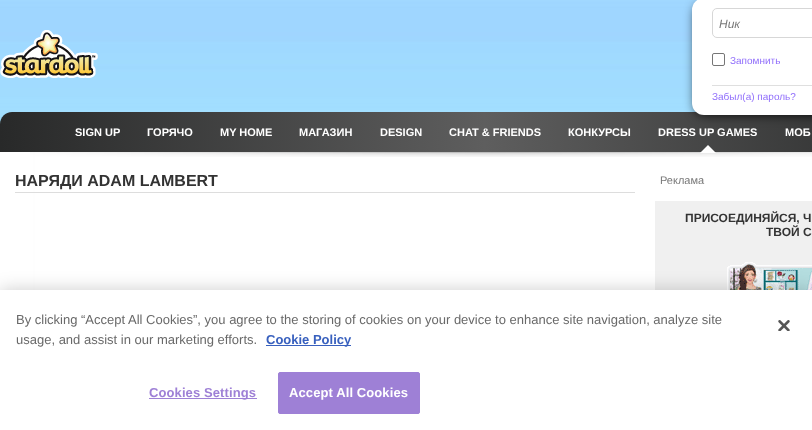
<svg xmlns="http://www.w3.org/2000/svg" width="812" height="430">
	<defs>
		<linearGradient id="g1" gradientUnits="userSpaceOnUse" x1="0" y1="132" x2="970" y2="132"><stop offset="0" stop-color="#282929" /><stop offset="0.5" stop-color="#5E5E5E" /><stop offset="1" stop-color="#282929" /></linearGradient>
	</defs>
	<rect width="100%" height="100%" fill="#FFFFFF" />
	<image x="0" y="0" width="698" height="124" href="assets/img1.png" />
	<image x="0" y="30" width="98" height="48" href="assets/img2.png" />
	<rect x="-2" y="127" width="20" height="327" fill="#000000" fill-opacity="0.3" filter="blur(8px)" />
	<path d="M12 112H812C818.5 112 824 117.5 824 124V152H0V124C0 117.5 5.5 112 12 112Z" fill="url(#g1)" />
	<rect x="696" y="5" width="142" height="109" rx="8" fill="#000000" filter="blur(6px)" />
	<rect x="692" y="-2" width="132" height="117" rx="12" fill="#FFFFFF" />
	<rect x="712.5" y="8.5" width="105" height="29" rx="4.5" fill="none" stroke="#D7D7D7" />
	<text x="719" y="28" font-family="Liberation Sans" font-size="12" font-style="italic" fill="#787878">Ник</text>
	<rect x="712.5" y="53.5" width="12" height="12" rx="1.5" fill="none" stroke="#767676" />
	<text x="730" y="64" font-family="Liberation Sans" font-size="10" fill="#906EFB">Запомнить</text>
	<rect x="712" y="85" width="100" height="1" fill="#DFDFDF" />
	<text x="712" y="100" font-family="Liberation Sans" font-size="10" fill="#906EFB">Забыл(а) пароль?</text>
	<g font-family="Liberation Sans" font-size="11" font-weight="700" fill="#FFFFFF">
		<text x="75" y="136">SIGN UP</text>
		<text x="147" y="136">ГОРЯЧО</text>
		<text x="220" y="136">MY HOME</text>
		<text x="299" y="136">МАГАЗИН</text>
		<text x="380" y="136">DESIGN</text>
		<text x="449" y="136">CHAT &amp; FRIENDS</text>
		<text x="568" y="136">КОНКУРСЫ</text>
		<text x="658" y="136">DRESS UP GAMES</text>
	</g>
	<rect x="0" y="152" width="33" height="138" fill="#FFFFFF" />
	<image x="30" y="152" width="782" height="5" href="assets/img3.png" />
	<path d="M716 153H700L708 145Z" fill="#FFFFFF" />
	<text x="785" y="136" font-family="Liberation Sans" font-size="11" font-weight="700" fill="#FFFFFF">МОБ</text>
	<rect x="15" y="192" width="620" height="1" fill="#DDDDDD" />
	<text x="15" y="186" font-family="Liberation Sans" font-size="16" font-weight="700" fill="#333333">НАРЯДИ ADAM LAMBERT</text>
	<text x="660" y="184" font-family="Liberation Sans" font-size="11" fill="#787878">Реклама</text>
	<rect x="655" y="201" width="157" height="89" fill="#F0F0F0" />
	<g font-family="Liberation Sans" font-size="12" font-weight="700" fill="#333333">
		<text x="685" y="222">ПРИСОЕДИНЯЙСЯ, Ч</text>
		<text x="766" y="236">ТВОЙ С</text>
	</g>
	<image x="727" y="262" width="85" height="28" href="assets/img4.png" />
	<rect x="0" y="290" width="812" height="140" fill="#000000" fill-opacity="0.2" filter="blur(9px)" />
	<rect x="0" y="290" width="812" height="140" fill="#FFFFFF" />
	<g font-family="Liberation Sans" font-size="13" fill="#696969">
		<text x="16" y="324">By clicking “Accept All Cookies”, you agree to the storing of cookies on your device to enhance site navigation, analyze site</text>
		<text x="16" y="344">usage, and assist in our marketing efforts.</text>
	</g>
	<rect x="266" y="345" width="85" height="1" fill="#3860BE" />
	<text x="266" y="344" font-family="Liberation Sans" font-size="13" font-weight="700" fill="#3860BE">Cookie Policy</text>
	<image x="778" y="320" width="12" height="11" href="assets/img5.png" />
	<rect x="149" y="398" width="108" height="1" fill="#9E80D6" />
	<text x="149" y="397" font-family="Liberation Sans" font-size="13" font-weight="700" letter-spacing="0.1" fill="#9E80D6">Cookies Settings</text>
	<rect x="278.5" y="372.5" width="141" height="41" rx="1.5" fill="#9E80D6" stroke="#9E80D6" />
	<text x="289" y="397" font-family="Liberation Sans" font-size="13" font-weight="700" letter-spacing="0.1" fill="#FFFFFF">Accept All Cookies</text>
</svg>
